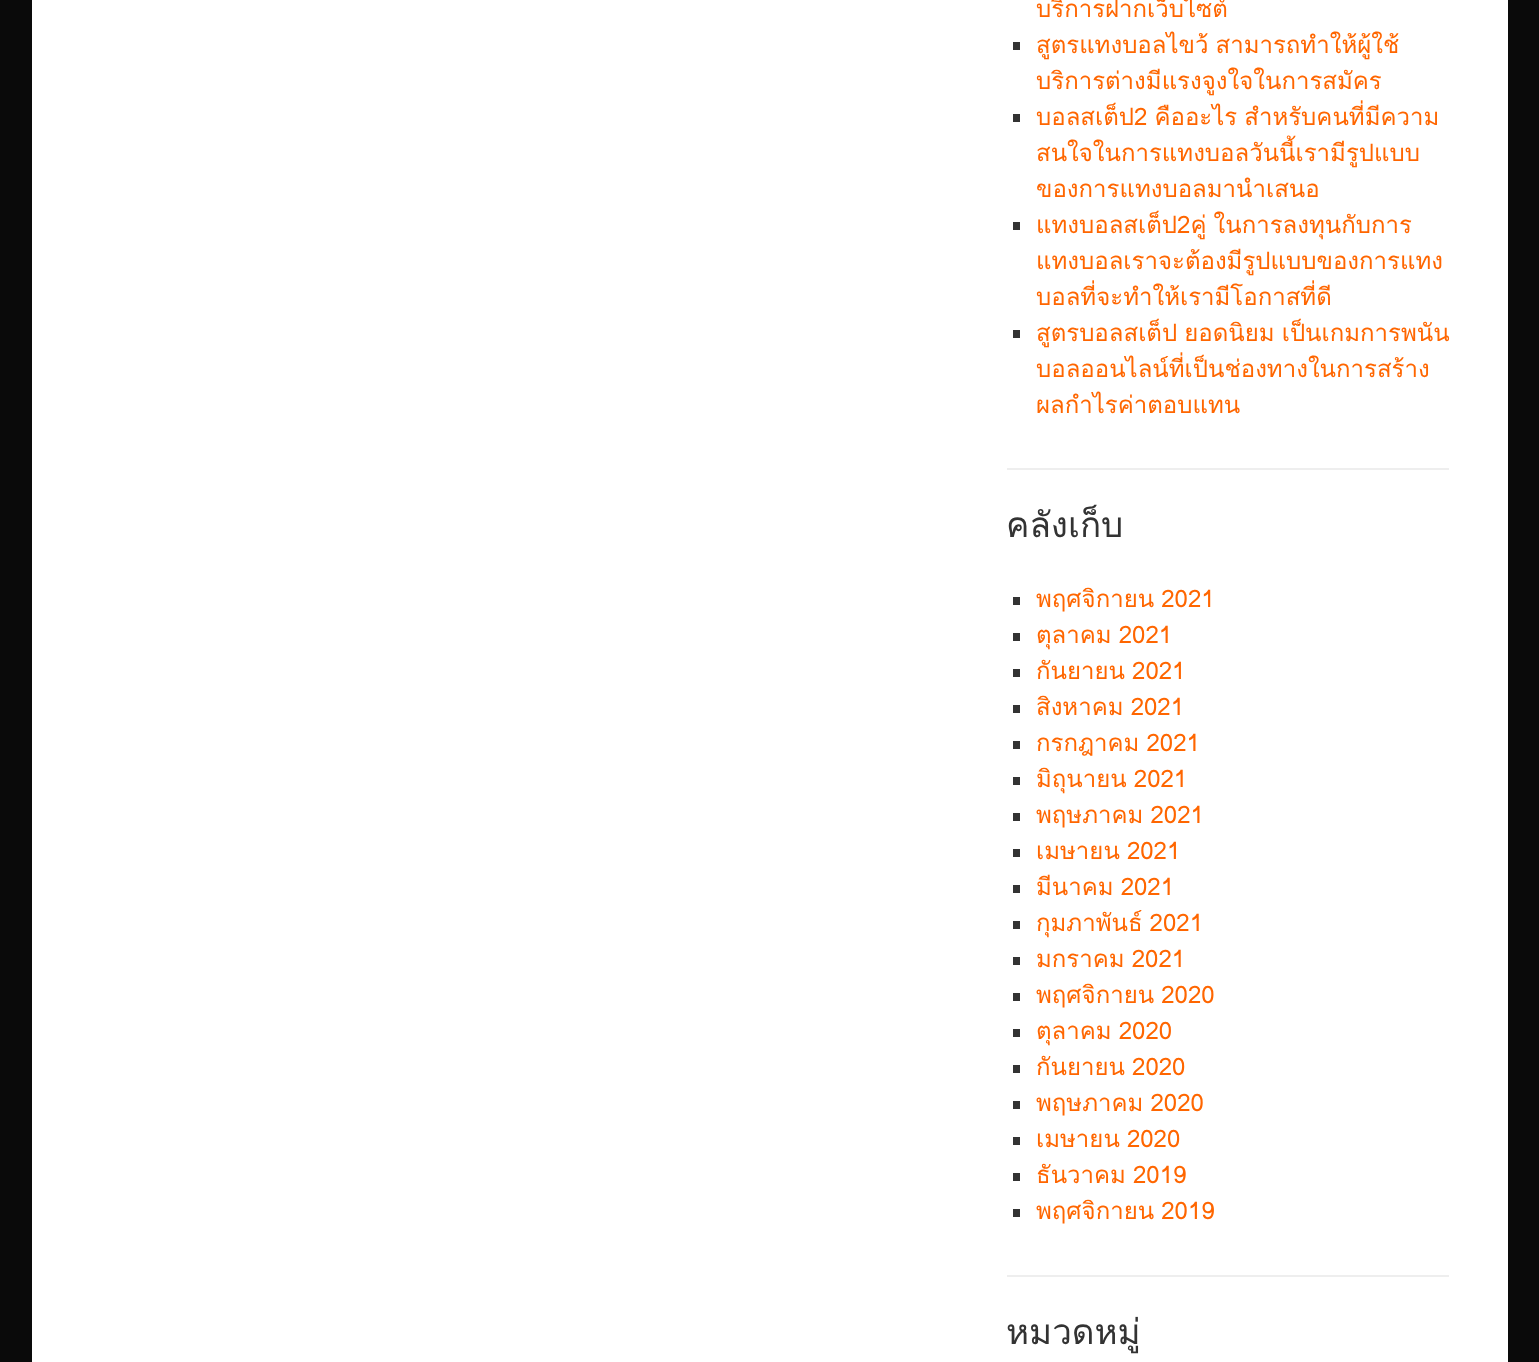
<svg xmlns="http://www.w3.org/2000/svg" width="1539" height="1362">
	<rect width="100%" height="100%" fill="#0A0A0A" />
	<rect x="32" y="0" width="1476" height="1362" fill="#FFFFFF" />
	<rect x="1007" y="468" width="442" height="2" fill="#EEEEEE" />
	<text x="1036" y="17" font-family="Loma" font-size="24" fill="#FF6600">บริการฝากเว็บไซต์</text>
	<rect x="1013" y="42" width="7" height="8" fill="#333333" />
	<g font-family="Loma" font-size="24" fill="#FF6600">
		<text x="1036" y="53" word-spacing="-1">สูตรแทงบอลไขว้ สามารถทำให้ผู้ใช้</text>
		<text x="1036" y="89">บริการต่างมีแรงจูงใจในการสมัคร</text>
	</g>
	<rect x="1013" y="114" width="7" height="8" fill="#333333" />
	<g font-family="Loma" font-size="24" fill="#FF6600">
		<text x="1036" y="125" word-spacing="-1">บอลสเต็ป2 คืออะไร สำหรับคนที่มีความ</text>
		<text x="1036" y="161">สนใจในการแทงบอลวันนี้เรามีรูปแบบ</text>
		<text x="1036" y="197">ของการแทงบอลมานำเสนอ</text>
	</g>
	<rect x="1013" y="222" width="7" height="8" fill="#333333" />
	<g font-family="Loma" font-size="24" fill="#FF6600">
		<text x="1036" y="233" word-spacing="-1">แทงบอลสเต็ป2คู่ ในการลงทุนกับการ</text>
		<text x="1036" y="269">แทงบอลเราจะต้องมีรูปแบบของการแทง</text>
		<text x="1036" y="305">บอลที่จะทำให้เรามีโอกาสที่ดี</text>
	</g>
	<rect x="1013" y="330" width="7" height="8" fill="#333333" />
	<g font-family="Loma" font-size="24" fill="#FF6600">
		<text x="1036" y="341" word-spacing="-1">สูตรบอลสเต็ป ยอดนิยม เป็นเกมการพนัน</text>
		<text x="1036" y="377">บอลออนไลน์ที่เป็นช่องทางในการสร้าง</text>
		<text x="1036" y="413">ผลกำไรค่าตอบแทน</text>
	</g>
	<rect x="1007" y="1275" width="442" height="2" fill="#EEEEEE" />
	<text x="1006" y="537" font-family="Loma" font-size="35" fill="#333333">คลังเก็บ</text>
	<rect x="1013" y="597" width="7" height="8" fill="#333333" />
	<text x="1036" y="607" word-spacing="-1" font-family="Loma" font-size="24" fill="#FF6600">พฤศจิกายน 2021</text>
	<rect x="1013" y="633" width="7" height="8" fill="#333333" />
	<text x="1036" y="643" word-spacing="-1" font-family="Loma" font-size="24" fill="#FF6600">ตุลาคม 2021</text>
	<rect x="1013" y="669" width="7" height="8" fill="#333333" />
	<text x="1036" y="679" word-spacing="-1" font-family="Loma" font-size="24" fill="#FF6600">กันยายน 2021</text>
	<rect x="1013" y="705" width="7" height="8" fill="#333333" />
	<text x="1036" y="715" word-spacing="-1" font-family="Loma" font-size="24" fill="#FF6600">สิงหาคม 2021</text>
	<rect x="1013" y="741" width="7" height="8" fill="#333333" />
	<text x="1036" y="751" word-spacing="-1" font-family="Loma" font-size="24" fill="#FF6600">กรกฎาคม 2021</text>
	<rect x="1013" y="777" width="7" height="8" fill="#333333" />
	<text x="1036" y="787" word-spacing="-1" font-family="Loma" font-size="24" fill="#FF6600">มิถุนายน 2021</text>
	<rect x="1013" y="813" width="7" height="8" fill="#333333" />
	<text x="1036" y="823" word-spacing="-1" font-family="Loma" font-size="24" fill="#FF6600">พฤษภาคม 2021</text>
	<rect x="1013" y="849" width="7" height="8" fill="#333333" />
	<text x="1036" y="859" word-spacing="-1" font-family="Loma" font-size="24" fill="#FF6600">เมษายน 2021</text>
	<rect x="1013" y="885" width="7" height="8" fill="#333333" />
	<text x="1036" y="895" word-spacing="-1" font-family="Loma" font-size="24" fill="#FF6600">มีนาคม 2021</text>
	<rect x="1013" y="921" width="7" height="8" fill="#333333" />
	<text x="1036" y="931" word-spacing="-1" font-family="Loma" font-size="24" fill="#FF6600">กุมภาพันธ์ 2021</text>
	<rect x="1013" y="957" width="7" height="8" fill="#333333" />
	<text x="1036" y="967" word-spacing="-1" font-family="Loma" font-size="24" fill="#FF6600">มกราคม 2021</text>
	<rect x="1013" y="993" width="7" height="8" fill="#333333" />
	<text x="1036" y="1003" word-spacing="-1" font-family="Loma" font-size="24" fill="#FF6600">พฤศจิกายน 2020</text>
	<rect x="1013" y="1029" width="7" height="8" fill="#333333" />
	<text x="1036" y="1039" word-spacing="-1" font-family="Loma" font-size="24" fill="#FF6600">ตุลาคม 2020</text>
	<rect x="1013" y="1065" width="7" height="8" fill="#333333" />
	<text x="1036" y="1075" word-spacing="-1" font-family="Loma" font-size="24" fill="#FF6600">กันยายน 2020</text>
	<rect x="1013" y="1101" width="7" height="8" fill="#333333" />
	<text x="1036" y="1111" word-spacing="-1" font-family="Loma" font-size="24" fill="#FF6600">พฤษภาคม 2020</text>
	<rect x="1013" y="1137" width="7" height="8" fill="#333333" />
	<text x="1036" y="1147" word-spacing="-1" font-family="Loma" font-size="24" fill="#FF6600">เมษายน 2020</text>
	<rect x="1013" y="1173" width="7" height="8" fill="#333333" />
	<text x="1036" y="1183" word-spacing="-1" font-family="Loma" font-size="24" fill="#FF6600">ธันวาคม 2019</text>
	<rect x="1013" y="1209" width="7" height="8" fill="#333333" />
	<text x="1036" y="1219" word-spacing="-1" font-family="Loma" font-size="24" fill="#FF6600">พฤศจิกายน 2019</text>
	<text x="1006" y="1344" font-family="Loma" font-size="35" fill="#333333">หมวดหมู่</text>
</svg>
